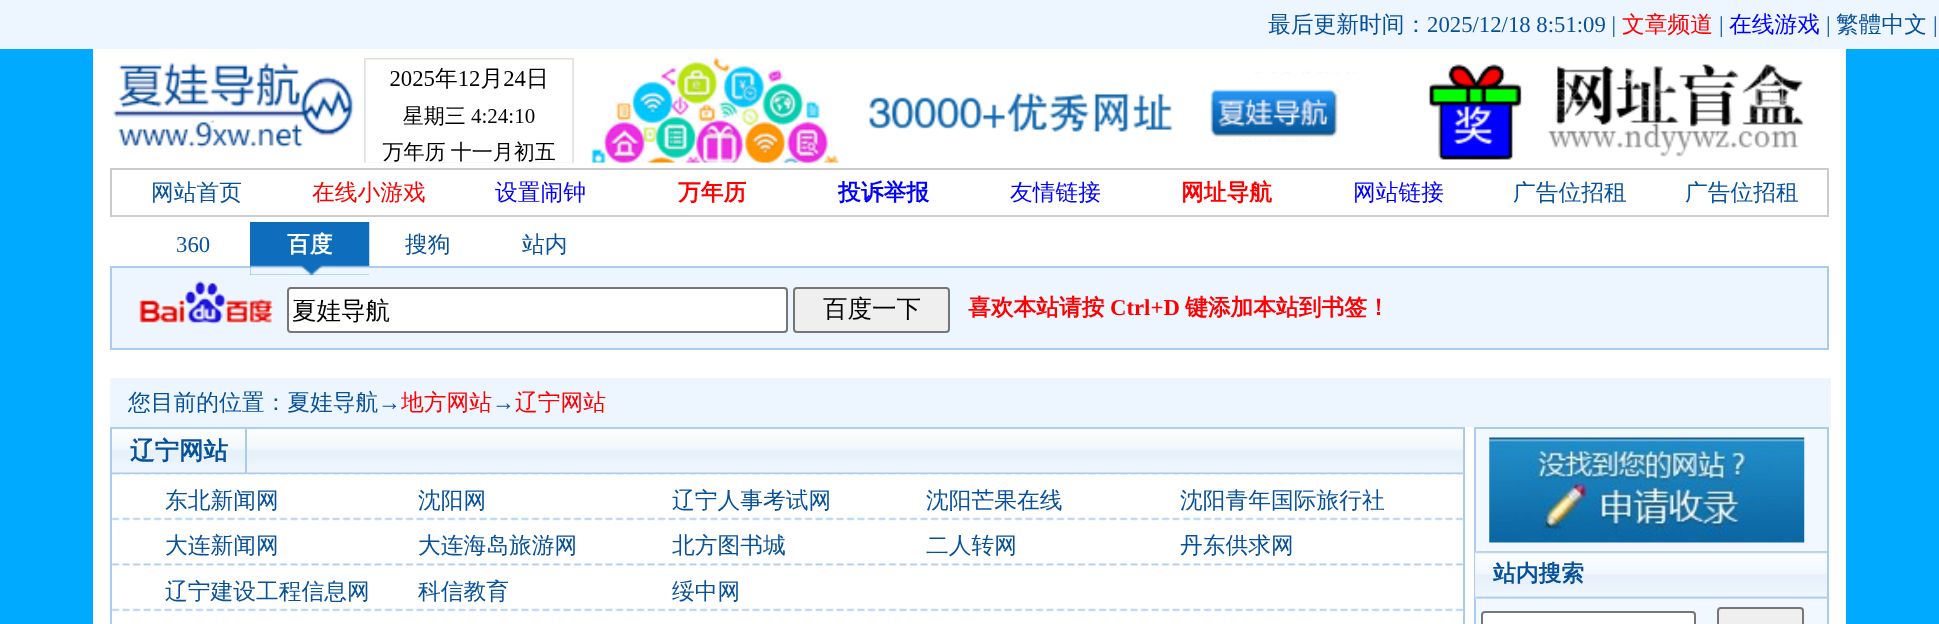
<svg xmlns="http://www.w3.org/2000/svg" width="1939" height="624">
	<rect width="100%" height="100%" fill="#00AAFF" />
	<rect x="0" y="0" width="1939" height="49" fill="#EDF6FF" />
	<text x="1268" y="32" font-family="WenQuanYi Zen Hei" font-size="22.75" font-weight="500" fill="#07519A">最后更新时间：</text>
	<text x="1427" y="32" font-family="Liberation Serif" font-size="22.75" fill="#07519A">2025/12/18 8:51:09 |</text>
	<text x="1622" y="32" font-family="WenQuanYi Zen Hei" font-size="22.75" font-weight="500" fill="#FF0000">文章频道</text>
	<text x="1719" y="32" font-family="Liberation Serif" font-size="22.75" fill="#07519A">|</text>
	<text x="1729" y="32" font-family="WenQuanYi Zen Hei" font-size="22.75" font-weight="500" fill="#0000FF">在线游戏</text>
	<text x="1826" y="32" font-family="Liberation Serif" font-size="22.75" fill="#07519A">|</text>
	<text x="1836" y="32" font-family="WenQuanYi Zen Hei" font-size="22.75" font-weight="500" fill="#07519A">繁體中文</text>
	<text x="1933" y="32" font-family="Liberation Serif" font-size="22.75" fill="#07519A">|</text>
	<rect x="93" y="49" width="1753" height="575" fill="#FFFFFF" />
	<image x="113" y="62" width="241" height="86" href="assets/img1.png" />
	<image x="364" y="58" width="210" height="105" href="assets/img2.png" />
	<image x="591" y="57" width="767" height="106" href="assets/img3.png" />
	<image x="1428" y="64" width="376" height="96" href="assets/img4.png" />
	<rect x="110" y="168" width="1719" height="49" fill="#CCCCCC" />
	<rect x="112" y="170" width="1715" height="45" fill="#FFFFFF" />
	<text x="151" y="200" font-family="WenQuanYi Zen Hei" font-size="22.75" font-weight="500" fill="#07519A">网站首页</text>
	<text x="312" y="200" font-family="WenQuanYi Zen Hei" font-size="22.75" font-weight="500" fill="#FF0000">在线小游戏</text>
	<text x="495" y="200" font-family="WenQuanYi Zen Hei" font-size="22.75" font-weight="500" fill="#0000FF">设置闹钟</text>
	<text x="678" y="200" font-family="WenQuanYi Zen Hei" font-size="22.75" font-weight="700" fill="#FF0000">万年历</text>
	<text x="838" y="200" font-family="WenQuanYi Zen Hei" font-size="22.75" font-weight="700" fill="#0000FF">投诉举报</text>
	<text x="1010" y="200" font-family="WenQuanYi Zen Hei" font-size="22.75" font-weight="500" fill="#0000FF">友情链接</text>
	<text x="1181" y="200" font-family="WenQuanYi Zen Hei" font-size="22.75" font-weight="700" fill="#FF0000">网址导航</text>
	<text x="1353" y="200" font-family="WenQuanYi Zen Hei" font-size="22.75" font-weight="500" fill="#0000FF">网站链接</text>
	<g font-family="WenQuanYi Zen Hei" font-size="22.75" font-weight="500" fill="#07519A">
		<text x="1513" y="200">广告位招租</text>
		<text x="1685" y="200">广告位招租</text>
	</g>
	<text x="176" y="252" font-family="Liberation Serif" font-size="22.75" fill="#07519A">360</text>
	<rect x="111" y="267" width="1717" height="82" fill="#EDF6FF" stroke="#AACCEE" stroke-width="2" />
	<rect x="250" y="222" width="119" height="53" fill="#0E6DBC" />
	<image x="250" y="222" width="120" height="53" href="assets/img5.png" />
	<text x="287" y="252" font-family="WenQuanYi Zen Hei" font-size="22.75" font-weight="700" fill="#FFFFFF">百度</text>
	<g font-family="WenQuanYi Zen Hei" font-size="22.75" font-weight="500" fill="#07519A">
		<text x="405" y="252">搜狗</text>
		<text x="522" y="252">站内</text>
	</g>
	<image x="139" y="281" width="134" height="43" href="assets/img6.png" />
	<rect x="288" y="288" width="499" height="44" rx="3" fill="#FFFFFF" stroke="#767676" stroke-width="2" />
	<text x="292" y="319" font-family="WenQuanYi Zen Hei" font-size="24.5" font-weight="500" fill="#000000">夏娃导航</text>
	<rect x="794" y="288" width="155" height="44" rx="3" fill="#EFEFEF" stroke="#767676" stroke-width="2" />
	<text x="823" y="317" font-family="WenQuanYi Zen Hei" font-size="24.5" font-weight="500" fill="#000000">百度一下</text>
	<text x="968" y="315" font-family="WenQuanYi Zen Hei" font-size="22.75" font-weight="700" fill="#FF0000">喜欢本站请按</text>
	<text x="1110" y="315" font-family="Liberation Serif" font-size="22.75" font-weight="700" fill="#FF0000">Ctrl+D</text>
	<text x="1185" y="315" font-family="WenQuanYi Zen Hei" font-size="22.75" font-weight="700" fill="#FF0000">键添加本站到书签！</text>
	<rect x="110" y="378" width="1721" height="49" fill="#EDF6FF" />
	<text x="128" y="410" font-family="WenQuanYi Zen Hei" font-size="22.75" font-weight="500" fill="#07519A">您目前的位置：夏娃导航</text>
	<text x="378" y="410" font-family="Liberation Serif" font-size="22.75" fill="#07519A">→</text>
	<text x="401" y="410" font-family="WenQuanYi Zen Hei" font-size="22.75" font-weight="500" fill="#FF0000">地方网站</text>
	<text x="492" y="410" font-family="Liberation Serif" font-size="22.75" fill="#07519A">→</text>
	<text x="515" y="410" font-family="WenQuanYi Zen Hei" font-size="22.75" font-weight="500" fill="#FF0000">辽宁网站</text>
	<rect x="111" y="428" width="1353" height="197" fill="none" stroke="#AACCEE" stroke-width="2" />
	<image x="112" y="428" width="1351" height="47" href="assets/img7.png" />
	<rect x="245" y="429" width="2" height="45" fill="#AACCEE" />
	<text x="130" y="459" font-family="WenQuanYi Zen Hei" font-size="24.5" font-weight="700" fill="#07519A">辽宁网站</text>
	<image x="112" y="474" width="1351" height="138" href="assets/img8.png" />
	<g font-family="WenQuanYi Zen Hei" font-size="22.75" font-weight="500" fill="#07519A">
		<text x="165" y="508">东北新闻网</text>
		<text x="418" y="508">沈阳网</text>
		<text x="672" y="508">辽宁人事考试网</text>
		<text x="926" y="508">沈阳芒果在线</text>
		<text x="1180" y="508">沈阳青年国际旅行社</text>
		<text x="165" y="553">大连新闻网</text>
		<text x="418" y="553">大连海岛旅游网</text>
		<text x="672" y="553">北方图书城</text>
		<text x="926" y="553">二人转网</text>
		<text x="1180" y="553">丹东供求网</text>
		<text x="165" y="599">辽宁建设工程信息网</text>
		<text x="418" y="599">科信教育</text>
		<text x="672" y="599">绥中网</text>
	</g>
	<rect x="1475" y="428" width="353" height="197" fill="#F1F8FF" stroke="#AACCEE" stroke-width="2" />
	<image x="1489" y="437" width="316" height="106" href="assets/img9.png" />
	<rect x="1475" y="551" width="352" height="48" fill="#E6F1FB" />
	<image x="1475" y="551" width="352" height="48" href="assets/img10.png" />
	<text x="1493" y="581" font-family="WenQuanYi Zen Hei" font-size="22.75" font-weight="700" fill="#07519A">站内搜索</text>
	<rect x="1482" y="612" width="213" height="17" rx="3" fill="#FFFFFF" stroke="#767676" stroke-width="2" />
	<rect x="1718" y="608" width="85" height="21" rx="3" fill="#EFEFEF" stroke="#767676" stroke-width="2" />
</svg>
